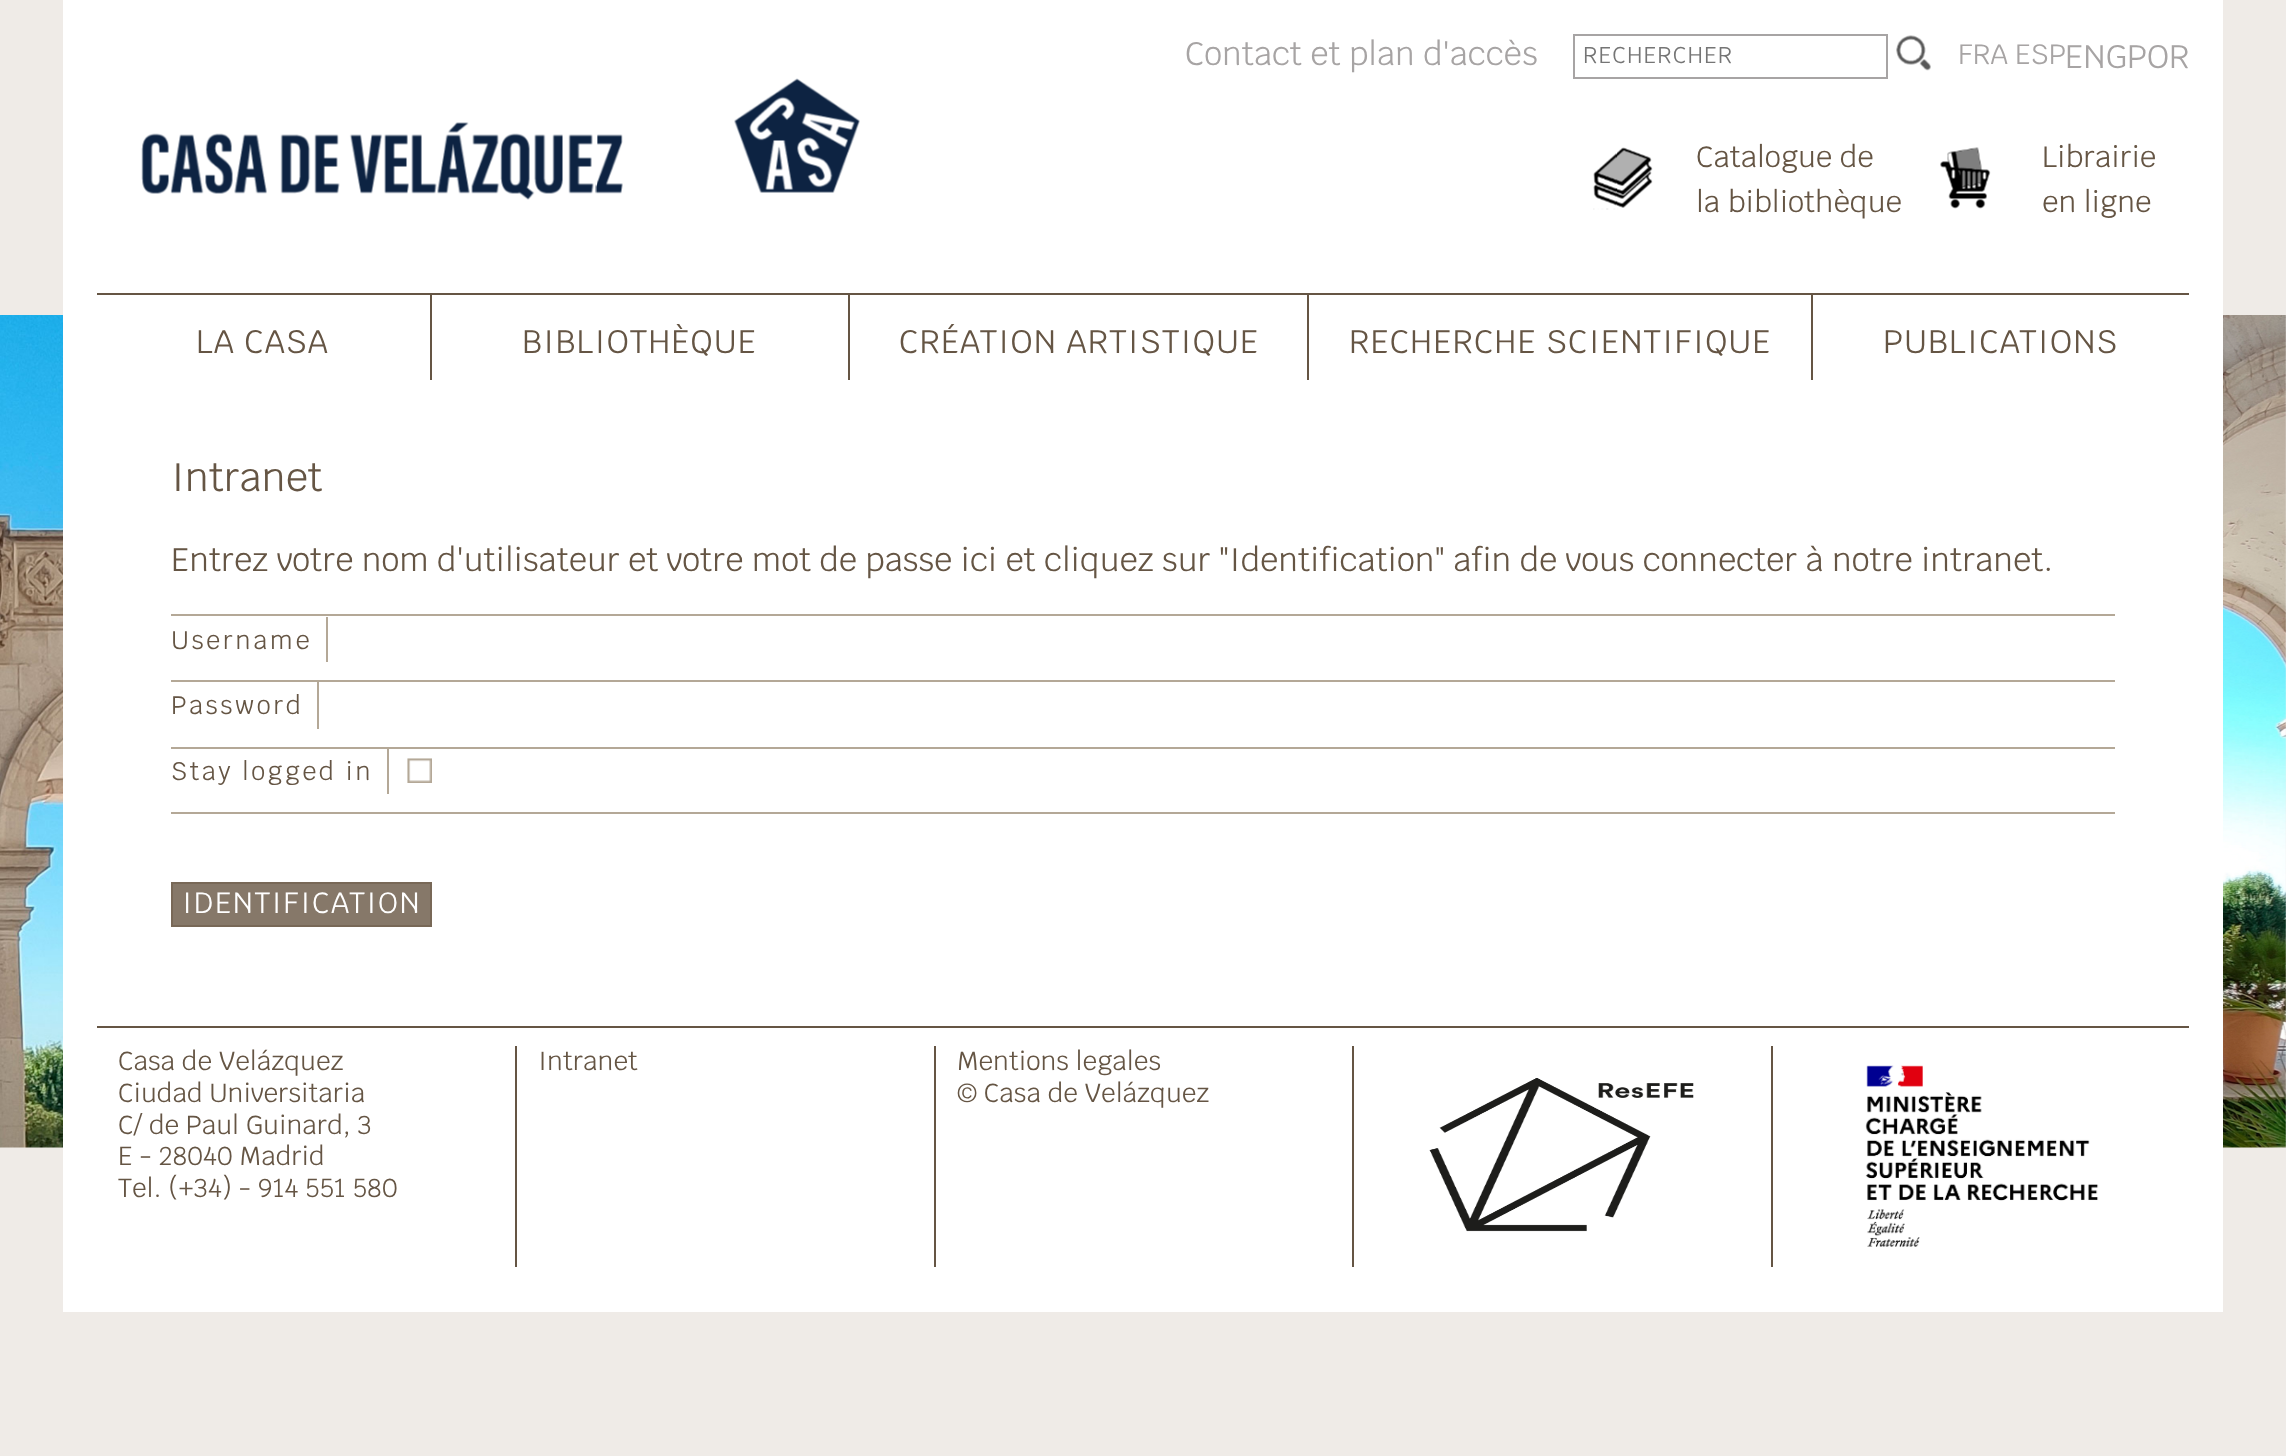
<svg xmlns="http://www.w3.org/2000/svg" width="2286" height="1456">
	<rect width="100%" height="100%" fill="#EFEBE7" />
	<rect x="63" y="0" width="2160" height="1312" fill="#FFFFFF" />
	<image x="141" y="78" width="719" height="122" href="assets/img1.png" />
	<text x="1185" y="65" font-family="Krub" font-size="32.4" fill="#A7A4A4">Contact et plan d'accès</text>
	<rect x="1574" y="35" width="313" height="43" fill="none" stroke="#A7A4A4" stroke-width="2" />
	<text x="1583" y="63" font-family="Krub" font-size="22.75" letter-spacing="1.1" fill="#757575">RECHERCHER</text>
	<image x="1896" y="35" width="35" height="36" href="assets/img2.png" />
	<g font-family="Krub" font-size="28" fill="#A7A4A4">
		<text x="1958" y="64">FRA</text>
		<text x="2015" y="64">ESP</text>
	</g>
	<text x="2065" y="68" font-family="Krub" font-size="32.4" fill="#A7A4A4">ENGPOR</text>
	<image x="1593" y="147" width="60" height="63" href="assets/img3.png" />
	<g font-family="Krub" font-size="29.25" fill="#655544">
		<text x="1696" y="167">Catalogue de</text>
		<text x="1696" y="212">la bibliothèque</text>
	</g>
	<image x="1940" y="147" width="51" height="62" href="assets/img4.png" />
	<g font-family="Krub" font-size="29.25" fill="#655544">
		<text x="2042" y="167">Librairie</text>
		<text x="2042" y="212">en ligne</text>
	</g>
	<rect x="97" y="293" width="2092" height="2" fill="#655544" />
	<rect x="430" y="295" width="2" height="85" fill="#655544" />
	<text x="196" y="353" font-family="Krub" font-size="32.4" letter-spacing="1.1" fill="#655544">LA CASA</text>
	<rect x="848" y="295" width="2" height="85" fill="#655544" />
	<text x="522" y="353" font-family="Krub" font-size="32.4" letter-spacing="1.1" fill="#655544">BIBLIOTHÈQUE</text>
	<rect x="1307" y="295" width="2" height="85" fill="#655544" />
	<text x="899" y="353" font-family="Krub" font-size="32.4" letter-spacing="1.1" fill="#655544">CRÉATION ARTISTIQUE</text>
	<rect x="1811" y="295" width="2" height="85" fill="#655544" />
	<g font-family="Krub" font-size="32.4" letter-spacing="1.1" fill="#655544">
		<text x="1349" y="353">RECHERCHE SCIENTIFIQUE</text>
		<text x="1883" y="353">PUBLICATIONS</text>
	</g>
	<image x="0" y="315" width="63" height="833" href="assets/img5.png" />
	<text x="171" y="491" font-family="Krub" font-size="39.5" fill="#655544">Intranet</text>
	<text x="171" y="571" font-family="Krub" font-size="32.4" fill="#655544">Entrez votre nom d'utilisateur et votre mot de passe ici et cliquez sur "Identification" afin de vous connecter à notre intranet.</text>
	<rect x="171" y="614" width="1944" height="2" fill="#B4A897" />
	<rect x="326" y="617" width="2" height="45" fill="#B4A897" />
	<text x="171" y="649" font-family="Krub" font-size="25.25" letter-spacing="2.5" fill="#655544">Username</text>
	<rect x="171" y="680" width="1944" height="2" fill="#B4A897" />
	<rect x="317" y="682" width="2" height="47" fill="#B4A897" />
	<text x="171" y="714" font-family="Krub" font-size="25.25" letter-spacing="2.5" fill="#655544">Password</text>
	<rect x="171" y="747" width="1944" height="2" fill="#B4A897" />
	<rect x="387" y="749" width="2" height="45" fill="#B4A897" />
	<text x="171" y="780" font-family="Krub" font-size="25.25" letter-spacing="2.5" fill="#655544">Stay logged in</text>
	<image x="407" y="758" width="25" height="25" href="assets/img6.png" />
	<rect x="171" y="812" width="1944" height="2" fill="#B4A897" />
	<rect x="172" y="883" width="259" height="43" fill="#867869" stroke="#786857" stroke-width="2" />
	<text x="182" y="913" font-family="Krub" font-size="29.25" letter-spacing="1.5" fill="#FFFFFF">IDENTIFICATION</text>
	<image x="2223" y="315" width="63" height="833" href="assets/img7.png" />
	<rect x="97" y="1026" width="2092" height="2" fill="#655544" />
	<g font-family="Krub" font-size="26" fill="#655544">
		<text x="118" y="1070">Casa de Velázquez</text>
		<text x="118" y="1102">Ciudad Universitaria</text>
		<text x="118" y="1134">C/ de Paul Guinard, 3</text>
		<text x="118" y="1165">E - 28040 Madrid</text>
		<text x="118" y="1197">Tel. (+34) - 914 551 580</text>
	</g>
	<rect x="515" y="1046" width="2" height="221" fill="#655544" />
	<text x="538" y="1070" font-family="Krub" font-size="26" fill="#655544">Intranet</text>
	<rect x="934" y="1046" width="2" height="221" fill="#655544" />
	<g font-family="Krub" font-size="26" fill="#655544">
		<text x="957" y="1070">Mentions legales</text>
		<text x="957" y="1102">© Casa de Velázquez</text>
	</g>
	<rect x="1352" y="1046" width="2" height="221" fill="#655544" />
	<image x="1429" y="1078" width="265" height="154" href="assets/img8.png" />
	<rect x="1771" y="1046" width="2" height="221" fill="#655544" />
	<image x="1865" y="1065" width="234" height="182" href="assets/img9.png" />
</svg>
